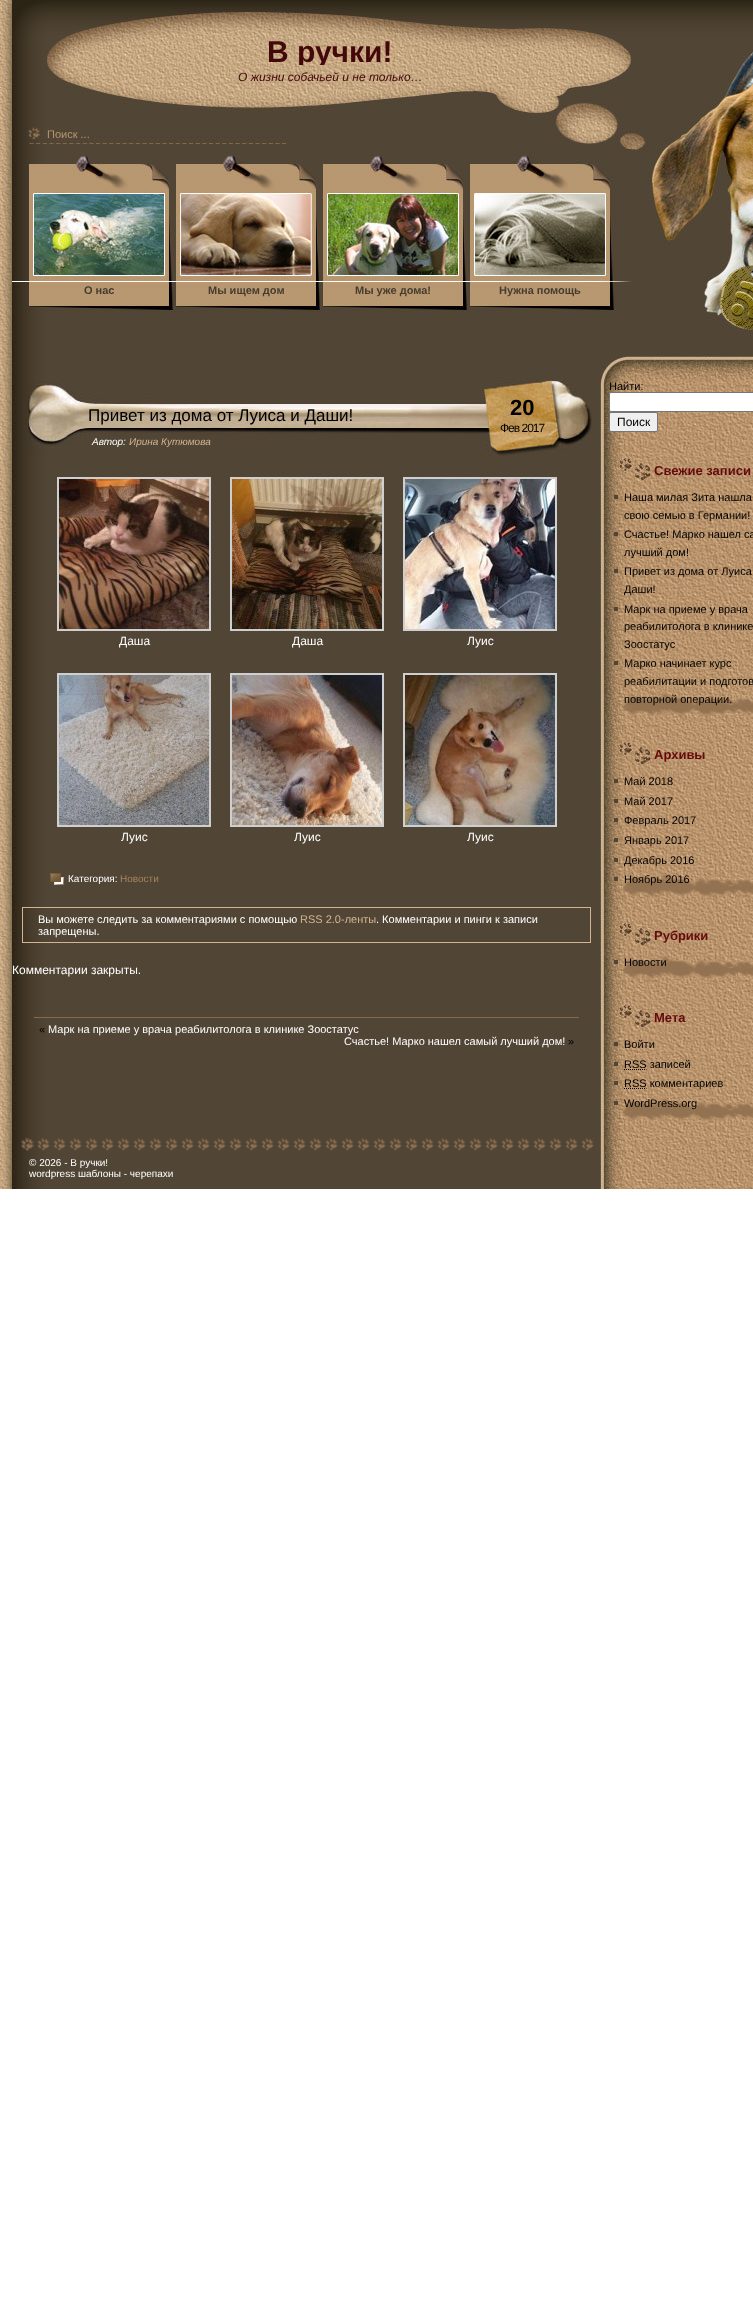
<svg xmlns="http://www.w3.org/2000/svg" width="753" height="2310">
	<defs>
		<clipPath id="clip1"><rect x="80" y="35" width="500" height="30" /></clipPath>
	</defs>
	<rect width="100%" height="100%" fill="#FFFFFF" />
	<image x="0" y="340" width="753" height="849" href="assets/img1.png" />
	<image x="0" y="0" width="753" height="340" href="assets/img2.png" />
	<g clip-path="url(#clip1)">
		<text x="267" y="62" font-family="Liberation Sans" font-size="30" font-weight="700" fill="#43080A">В ручки!</text>
	</g>
	<text x="238" y="81" font-family="Liberation Sans" font-size="12" font-style="italic" fill="#43080A">О жизни собачьей и не только…</text>
	<text x="47" y="138" font-family="Liberation Sans" font-size="11" fill="#B89770">Поиск ...</text>
	<g font-family="Liberation Sans" font-size="11" font-weight="700" fill="#463C2E">
		<text x="84" y="294">О нас</text>
		<text x="208" y="294">Мы ищем дом</text>
		<text x="355" y="294">Мы уже дома!</text>
		<text x="499" y="294">Нужна помощь</text>
	</g>
	<image x="600" y="340" width="153" height="85" href="assets/img3.png" />
	<image x="28" y="380" width="564" height="76" href="assets/img4.png" />
	<text x="88" y="421" font-family="Liberation Sans" font-size="17" fill="#000000">Привет из дома от Луиса и Даши!</text>
	<text x="510" y="415" font-family="Liberation Sans" font-size="22" font-weight="700" fill="#000000">20</text>
	<text x="500" y="432" font-family="Liberation Sans" font-size="12" letter-spacing="-1" fill="#000000">Фев 2017</text>
	<text x="92" y="445" font-family="Liberation Sans" font-size="10" font-style="italic" fill="#FFFFFF">Автор:</text>
	<text x="129" y="445" font-family="Liberation Sans" font-size="10" font-style="italic" fill="#D3B592">Ирина Кутюмова</text>
	<rect x="58" y="478" width="152" height="152" fill="none" stroke="#CFCFCF" stroke-width="2" />
	<image x="59" y="479" width="150" height="150" href="assets/img5.png" />
	<text x="119" y="645" font-family="Liberation Sans" font-size="12" fill="#FFFFFF">Даша</text>
	<rect x="231" y="478" width="152" height="152" fill="none" stroke="#CFCFCF" stroke-width="2" />
	<image x="232" y="479" width="150" height="150" href="assets/img6.png" />
	<text x="292" y="645" font-family="Liberation Sans" font-size="12" fill="#FFFFFF">Даша</text>
	<rect x="404" y="478" width="152" height="152" fill="none" stroke="#CFCFCF" stroke-width="2" />
	<image x="405" y="479" width="150" height="150" href="assets/img7.png" />
	<text x="467" y="645" font-family="Liberation Sans" font-size="12" fill="#FFFFFF">Луис</text>
	<rect x="58" y="674" width="152" height="152" fill="none" stroke="#CFCFCF" stroke-width="2" />
	<image x="59" y="675" width="150" height="150" href="assets/img8.png" />
	<text x="121" y="841" font-family="Liberation Sans" font-size="12" fill="#FFFFFF">Луис</text>
	<rect x="231" y="674" width="152" height="152" fill="none" stroke="#CFCFCF" stroke-width="2" />
	<image x="232" y="675" width="150" height="150" href="assets/img9.png" />
	<text x="294" y="841" font-family="Liberation Sans" font-size="12" fill="#FFFFFF">Луис</text>
	<rect x="404" y="674" width="152" height="152" fill="none" stroke="#CFCFCF" stroke-width="2" />
	<image x="405" y="675" width="150" height="150" href="assets/img10.png" />
	<text x="467" y="841" font-family="Liberation Sans" font-size="12" fill="#FFFFFF">Луис</text>
	<image x="50" y="873" width="14" height="12" href="assets/img11.png" />
	<text x="68" y="882" font-family="Liberation Sans" font-size="10" fill="#FFFFFF">Категория:</text>
	<text x="120" y="882" font-family="Liberation Sans" font-size="10" fill="#A4865C">Новости</text>
	<rect x="22.5" y="907.5" width="568" height="35" fill="none" stroke="#D3B592" />
	<text x="38" y="923" font-family="Liberation Sans" font-size="11" fill="#FFFFFF">Вы можете следить за комментариями с помощью</text>
	<text x="300" y="923" font-family="Liberation Sans" font-size="11" fill="#D3B592">RSS 2.0-ленты</text>
	<g font-family="Liberation Sans" font-size="11" fill="#FFFFFF">
		<text x="376" y="923">. Комментарии и пинги к записи</text>
		<text x="38" y="935">запрещены.</text>
	</g>
	<text x="12" y="974" font-family="Liberation Sans" font-size="12" fill="#FFFFFF">Комментарии закрыты.</text>
	<rect x="34" y="1017" width="545" height="1" fill="#86694C" />
	<text x="39" y="1033" font-family="Liberation Sans" font-size="11" fill="#000000">«</text>
	<g font-family="Liberation Sans" font-size="11" fill="#FFFFFF">
		<text x="48" y="1033">Марк на приеме у врача реабилитолога в клинике Зоостатус</text>
		<text x="344" y="1045">Счастье! Марко нашел самый лучший дом!</text>
	</g>
	<g font-family="Liberation Sans" font-size="11" fill="#000000">
		<text x="568" y="1045">»</text>
		<text x="609" y="390">Найти:</text>
	</g>
	<rect x="609.5" y="392.5" width="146" height="19" rx="1.5" fill="#FFFFFF" stroke="#767676" />
	<rect x="609.5" y="412.5" width="48" height="19" rx="1.5" fill="#EFEFEF" stroke="#767676" />
	<text x="617" y="426" font-family="Liberation Sans" font-size="12" fill="#000000">Поиск</text>
	<image x="619" y="458" width="32" height="22" href="assets/img12.png" />
	<text x="654" y="475" font-family="Liberation Sans" font-size="13" font-weight="700" fill="#640A0C">Свежие записи</text>
	<image x="623" y="693" width="130" height="23" href="assets/img13.png" />
	<rect x="614" y="495" width="4" height="4" fill="#514535" />
	<g font-family="Liberation Sans" font-size="11" fill="#000000">
		<text x="624" y="501">Наша милая Зита нашла</text>
		<text x="624" y="519">свою семью в Германии!</text>
	</g>
	<rect x="614" y="532" width="4" height="4" fill="#514535" />
	<g font-family="Liberation Sans" font-size="11" fill="#000000">
		<text x="624" y="538">Счастье! Марко нашел са</text>
		<text x="624" y="556">лучший дом!</text>
	</g>
	<rect x="614" y="569" width="4" height="4" fill="#514535" />
	<g font-family="Liberation Sans" font-size="11" fill="#000000">
		<text x="624" y="575">Привет из дома от Луиса</text>
		<text x="624" y="593">Даши!</text>
	</g>
	<rect x="614" y="607" width="4" height="4" fill="#514535" />
	<g font-family="Liberation Sans" font-size="11" fill="#000000">
		<text x="624" y="613">Марк на приеме у врача</text>
		<text x="624" y="630">реабилитолога в клинике</text>
		<text x="624" y="648">Зоостатус</text>
	</g>
	<rect x="614" y="661" width="4" height="4" fill="#514535" />
	<g font-family="Liberation Sans" font-size="11" fill="#000000">
		<text x="624" y="667">Марко начинает курс</text>
		<text x="624" y="685">реабилитации и подготов</text>
		<text x="624" y="703">повторной операции.</text>
	</g>
	<image x="619" y="742" width="32" height="22" href="assets/img14.png" />
	<text x="654" y="759" font-family="Liberation Sans" font-size="13" font-weight="700" fill="#640A0C">Архивы</text>
	<image x="623" y="874" width="130" height="23" href="assets/img15.png" />
	<rect x="614" y="779" width="4" height="4" fill="#514535" />
	<text x="624" y="785" font-family="Liberation Sans" font-size="11" fill="#000000">Май 2018</text>
	<rect x="614" y="799" width="4" height="4" fill="#514535" />
	<text x="624" y="805" font-family="Liberation Sans" font-size="11" fill="#000000">Май 2017</text>
	<rect x="614" y="818" width="4" height="4" fill="#514535" />
	<text x="624" y="824" font-family="Liberation Sans" font-size="11" fill="#000000">Февраль 2017</text>
	<rect x="614" y="838" width="4" height="4" fill="#514535" />
	<text x="624" y="844" font-family="Liberation Sans" font-size="11" fill="#000000">Январь 2017</text>
	<rect x="614" y="858" width="4" height="4" fill="#514535" />
	<text x="624" y="864" font-family="Liberation Sans" font-size="11" fill="#000000">Декабрь 2016</text>
	<rect x="614" y="877" width="4" height="4" fill="#514535" />
	<text x="624" y="883" font-family="Liberation Sans" font-size="11" fill="#000000">Ноябрь 2016</text>
	<image x="619" y="923" width="32" height="22" href="assets/img16.png" />
	<text x="654" y="940" font-family="Liberation Sans" font-size="13" font-weight="700" fill="#640A0C">Рубрики</text>
	<image x="623" y="956" width="130" height="23" href="assets/img17.png" />
	<rect x="614" y="960" width="4" height="4" fill="#514535" />
	<text x="624" y="966" font-family="Liberation Sans" font-size="11" fill="#000000">Новости</text>
	<image x="619" y="1005" width="32" height="22" href="assets/img18.png" />
	<text x="654" y="1022" font-family="Liberation Sans" font-size="13" font-weight="700" fill="#640A0C">Мета</text>
	<image x="623" y="1098" width="130" height="23" href="assets/img19.png" />
	<rect x="614" y="1042" width="4" height="4" fill="#514535" />
	<text x="624" y="1048" font-family="Liberation Sans" font-size="11" fill="#000000">Войти</text>
	<rect x="614" y="1062" width="4" height="4" fill="#514535" />
	<text x="624" y="1068" font-family="Liberation Sans" font-size="11" fill="#000000">RSS записей</text>
	<path d="M624 1069.5H646.5" fill="none" stroke="#000000" stroke-dasharray="1 1" />
	<rect x="614" y="1081" width="4" height="4" fill="#514535" />
	<path d="M624 1088.5H646.5" fill="none" stroke="#000000" stroke-dasharray="1 1" />
	<text x="624" y="1087" font-family="Liberation Sans" font-size="11" fill="#000000">RSS комментариев</text>
	<rect x="614" y="1101" width="4" height="4" fill="#514535" />
	<text x="624" y="1107" font-family="Liberation Sans" font-size="11" fill="#000000">WordPress.org</text>
	<image x="21" y="1138" width="573" height="13" href="assets/img20.png" />
	<g font-family="Liberation Sans" font-size="10" fill="#FFFFFF">
		<text x="29" y="1166">© 2026 - В ручки!</text>
		<text x="29" y="1177">wordpress шаблоны - черепахи</text>
	</g>
</svg>
